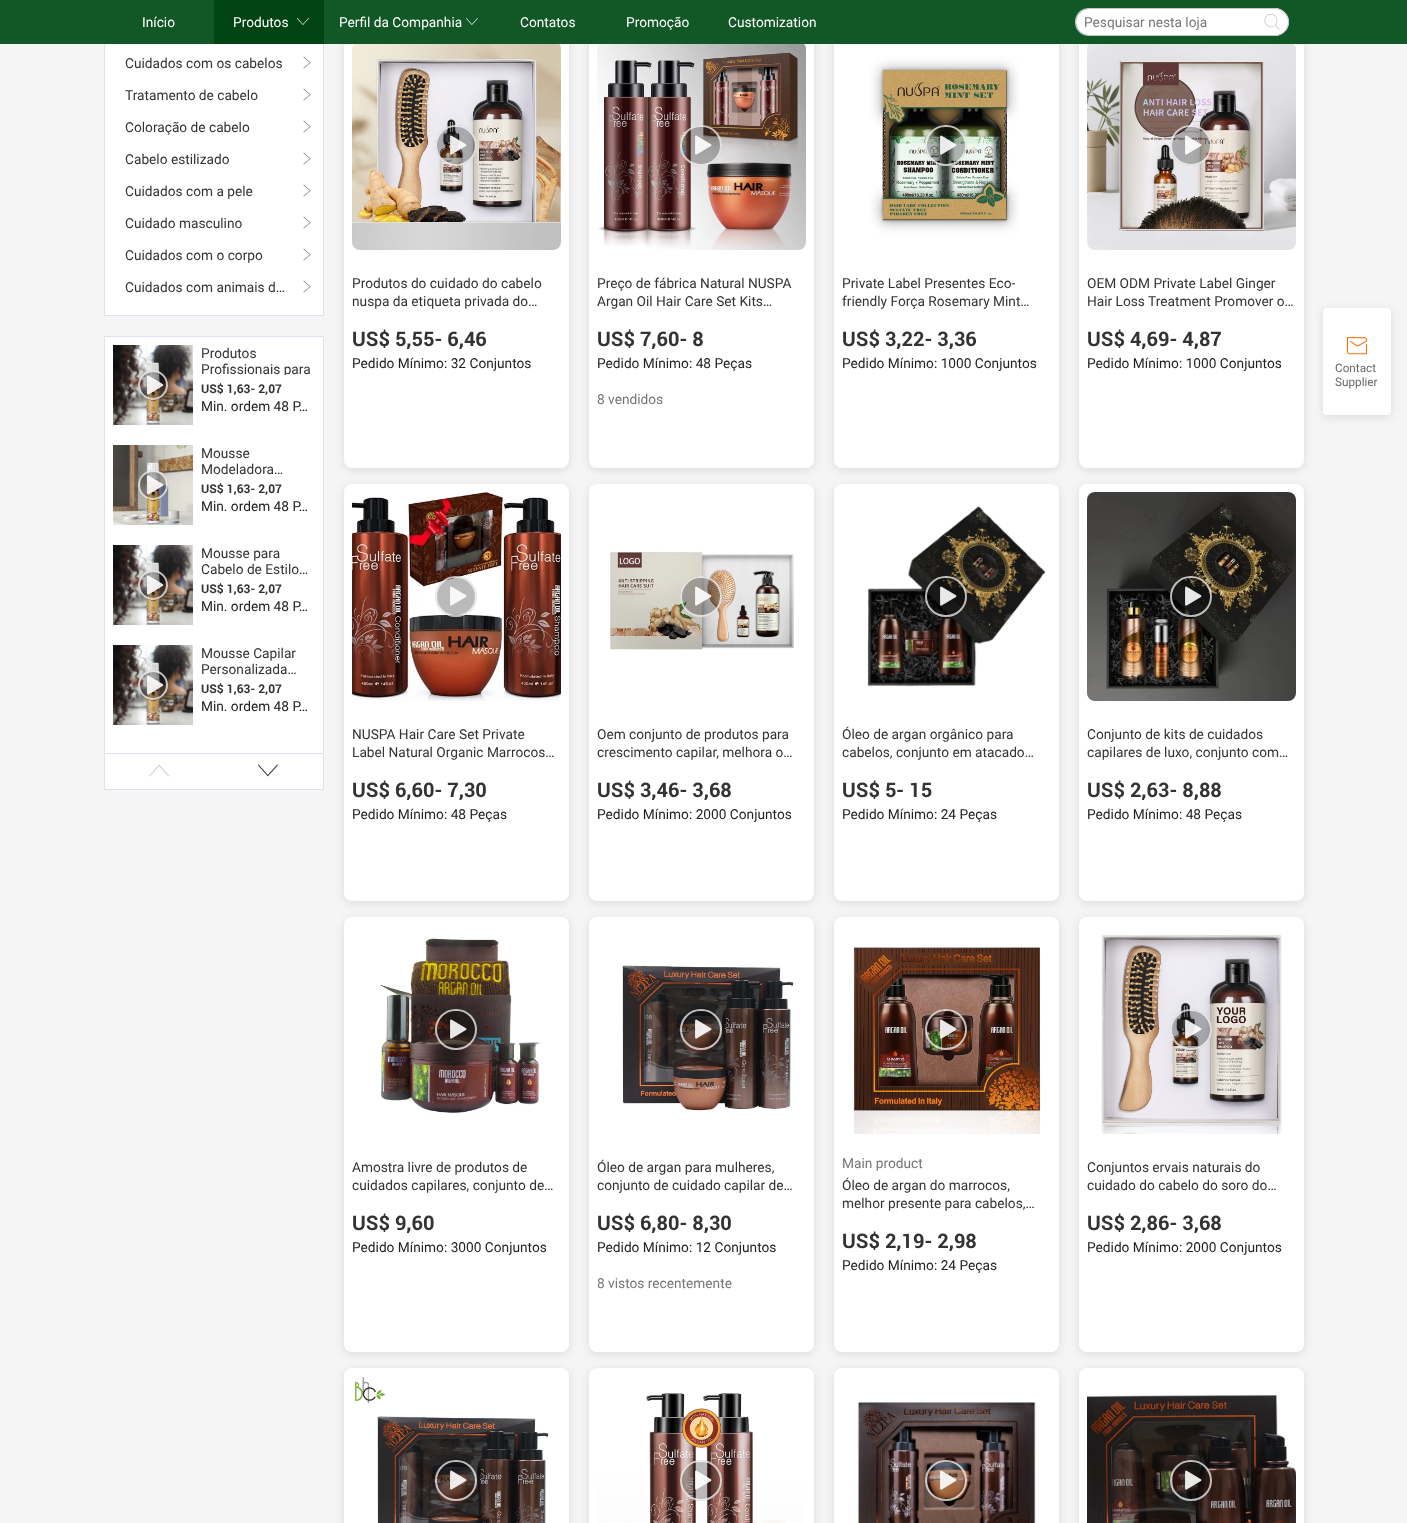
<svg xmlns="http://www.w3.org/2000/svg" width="1407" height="1523">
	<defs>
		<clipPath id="clip1"><rect x="201" y="345" width="114" height="30" /></clipPath>
	</defs>
	<rect width="100%" height="100%" fill="#F5F5F5" />
	<rect x="344" y="35" width="225" height="435" rx="8" fill="#000000" fill-opacity="0.1" filter="blur(4px)" />
	<rect x="344" y="33" width="225" height="435" rx="8" fill="#FFFFFF" />
	<rect x="589" y="35" width="225" height="435" rx="8" fill="#000000" fill-opacity="0.1" filter="blur(4px)" />
	<rect x="589" y="33" width="225" height="435" rx="8" fill="#FFFFFF" />
	<rect x="834" y="35" width="225" height="435" rx="8" fill="#000000" fill-opacity="0.1" filter="blur(4px)" />
	<rect x="834" y="33" width="225" height="435" rx="8" fill="#FFFFFF" />
	<rect x="1079" y="35" width="225" height="435" rx="8" fill="#000000" fill-opacity="0.1" filter="blur(4px)" />
	<rect x="1079" y="33" width="225" height="435" rx="8" fill="#FFFFFF" />
	<rect x="0" y="0" width="1407" height="44" fill="#125827" />
	<text x="142" y="27" font-family="Roboto" font-size="14" fill="#FFFFFF">Início</text>
	<rect x="214" y="0" width="110" height="44" fill="#004413" />
	<text x="233" y="27" font-family="Roboto" font-size="14" fill="#FFFFFF">Produtos</text>
	<image x="297" y="18" width="12" height="7" href="assets/img1.png" />
	<text x="339" y="27" font-family="Roboto" font-size="14" fill="#FFFFFF">Perfil da Companhia</text>
	<image x="466" y="18" width="12" height="7" href="assets/img2.png" />
	<g font-family="Roboto" font-size="14" fill="#FFFFFF">
		<text x="520" y="27">Contatos</text>
		<text x="626" y="27">Promoção</text>
		<text x="728" y="27">Customization</text>
	</g>
	<path d="M1089 8H1256V36H1089C1081 36 1075 30 1075 22C1075 14 1081 8 1089 8ZM1089 9H1256V35H1089C1082 35 1076 29 1076 22C1076 15 1082 9 1089 9Z" fill="#C4C6CF" fill-rule="evenodd" />
	<path d="M1089 9H1255.5C1256 9 1256 9 1256 9.5V34.5C1256 35 1256 35 1255.5 35H1089C1082 35 1076 29 1076 22C1076 15 1082 9 1089 9Z" fill="#FFFFFF" />
	<text x="1084" y="27" font-family="Roboto" font-size="14" fill="#767676">Pesquisar nesta loja</text>
	<path d="M1256 8H1275C1282.5 8 1289 14.5 1289 22C1289 29.5 1282.5 36 1275 36H1256Z" fill="#FFFFFF" />
	<path d="M1256 8H1275C1282.5 8 1289 14.5 1289 22C1289 29.5 1282.5 36 1275 36H1256ZM1256 9H1275C1282 9 1288 15 1288 22C1288 29 1282 35 1275 35H1256Z" fill="#C4C6CF" fill-rule="evenodd" />
	<image x="1264" y="14" width="16" height="16" href="assets/img3.png" />
	<rect x="105" y="44" width="218" height="271" fill="#FFFFFF" />
	<rect x="323" y="44" width="1" height="272" fill="#DBE3EF" />
	<rect x="104" y="315" width="220" height="1" fill="#DBE3EF" />
	<rect x="104" y="44" width="1" height="272" fill="#DBE3EF" />
	<text x="125" y="68" font-family="Roboto" font-size="14" fill="#333333">Cuidados com os cabelos</text>
	<image x="303" y="56" width="8" height="13" href="assets/img4.png" />
	<text x="125" y="100" font-family="Roboto" font-size="14" fill="#333333">Tratamento de cabelo</text>
	<image x="303" y="88" width="8" height="13" href="assets/img4.png" />
	<text x="125" y="132" font-family="Roboto" font-size="14" fill="#333333">Coloração de cabelo</text>
	<image x="303" y="120" width="8" height="13" href="assets/img4.png" />
	<text x="125" y="164" font-family="Roboto" font-size="14" fill="#333333">Cabelo estilizado</text>
	<image x="303" y="152" width="8" height="13" href="assets/img4.png" />
	<text x="125" y="196" font-family="Roboto" font-size="14" fill="#333333">Cuidados com a pele</text>
	<image x="303" y="184" width="8" height="13" href="assets/img4.png" />
	<text x="125" y="228" font-family="Roboto" font-size="14" fill="#333333">Cuidado masculino</text>
	<image x="303" y="216" width="8" height="13" href="assets/img4.png" />
	<text x="125" y="260" font-family="Roboto" font-size="14" fill="#333333">Cuidados com o corpo</text>
	<image x="303" y="248" width="8" height="13" href="assets/img4.png" />
	<text x="125" y="292" font-family="Roboto" font-size="14" fill="#333333">Cuidados com animais d…</text>
	<image x="303" y="280" width="8" height="13" href="assets/img4.png" />
	<rect x="104.5" y="336.5" width="219" height="453" fill="#FFFFFF" stroke="#DBE3EF" />
	<image x="113" y="345" width="80" height="80" href="assets/img5.png" />
	<circle cx="153" cy="385" r="15" fill="#000000" fill-opacity="0.27" />
	<circle cx="153" cy="385" r="14" fill="none" stroke="#FFFFFF" stroke-opacity="0.72" stroke-width="2" />
	<image x="146" y="375" width="18" height="20" href="assets/img6.png" />
	<text x="201" y="358" font-family="Roboto" font-size="14" fill="#333333">Produtos</text>
	<g clip-path="url(#clip1)">
		<text x="201" y="374" font-family="Roboto" font-size="14" fill="#333333">Profissionais para</text>
	</g>
	<text x="201" y="393" font-family="Roboto" font-size="12" font-weight="700" fill="#333333">US$ 1,63- 2,07</text>
	<text x="201" y="411" font-family="Roboto" font-size="14" fill="#222222">Min. ordem 48 P…</text>
	<image x="113" y="445" width="80" height="80" href="assets/img7.png" />
	<circle cx="153" cy="485" r="15" fill="#000000" fill-opacity="0.27" />
	<circle cx="153" cy="485" r="14" fill="none" stroke="#FFFFFF" stroke-opacity="0.72" stroke-width="2" />
	<image x="146" y="475" width="18" height="20" href="assets/img8.png" />
	<g font-family="Roboto" font-size="14" fill="#333333">
		<text x="201" y="458">Mousse</text>
		<text x="201" y="474">Modeladora…</text>
	</g>
	<text x="201" y="493" font-family="Roboto" font-size="12" font-weight="700" fill="#333333">US$ 1,63- 2,07</text>
	<text x="201" y="511" font-family="Roboto" font-size="14" fill="#222222">Min. ordem 48 P…</text>
	<image x="113" y="545" width="80" height="80" href="assets/img5.png" />
	<circle cx="153" cy="585" r="15" fill="#000000" fill-opacity="0.27" />
	<circle cx="153" cy="585" r="14" fill="none" stroke="#FFFFFF" stroke-opacity="0.72" stroke-width="2" />
	<image x="146" y="575" width="18" height="20" href="assets/img6.png" />
	<g font-family="Roboto" font-size="14" fill="#333333">
		<text x="201" y="558">Mousse para</text>
		<text x="201" y="574">Cabelo de Estilo…</text>
	</g>
	<text x="201" y="593" font-family="Roboto" font-size="12" font-weight="700" fill="#333333">US$ 1,63- 2,07</text>
	<text x="201" y="611" font-family="Roboto" font-size="14" fill="#222222">Min. ordem 48 P…</text>
	<image x="113" y="645" width="80" height="80" href="assets/img5.png" />
	<circle cx="153" cy="685" r="15" fill="#000000" fill-opacity="0.27" />
	<circle cx="153" cy="685" r="14" fill="none" stroke="#FFFFFF" stroke-opacity="0.72" stroke-width="2" />
	<image x="146" y="675" width="18" height="20" href="assets/img6.png" />
	<g font-family="Roboto" font-size="14" fill="#333333">
		<text x="201" y="658">Mousse Capilar</text>
		<text x="201" y="674">Personalizada…</text>
	</g>
	<text x="201" y="693" font-family="Roboto" font-size="12" font-weight="700" fill="#333333">US$ 1,63- 2,07</text>
	<text x="201" y="711" font-family="Roboto" font-size="14" fill="#222222">Min. ordem 48 P…</text>
	<rect x="105" y="753" width="218" height="1" fill="#DBE3EF" />
	<image x="149" y="764" width="20" height="13" href="assets/img9.png" />
	<image x="258" y="764" width="20" height="13" href="assets/img10.png" />
	<image x="352" y="44" width="209" height="206" href="assets/img11.png" />
	<rect x="435" y="125" width="42" height="41" rx="20.5" fill="#000000" fill-opacity="0.27" />
	<rect x="436" y="126" width="40" height="39" rx="19.5" fill="none" stroke="#FFFFFF" stroke-opacity="0.72" stroke-width="2" />
	<image x="450" y="135" width="17" height="20" href="assets/img12.png" />
	<g font-family="Roboto" font-size="14" fill="#333333">
		<text x="352" y="288">Produtos do cuidado do cabelo</text>
		<text x="352" y="306">nuspa da etiqueta privada do…</text>
	</g>
	<text x="352" y="346" font-family="Roboto" font-size="20" font-weight="700" fill="#333333">US$ 5,55- 6,46</text>
	<text x="352" y="368" font-family="Roboto" font-size="14" fill="#222222">Pedido Mínimo: 32 Conjuntos</text>
	<image x="597" y="44" width="209" height="206" href="assets/img13.png" />
	<rect x="680" y="125" width="42" height="41" rx="20.5" fill="#000000" fill-opacity="0.27" />
	<rect x="681" y="126" width="40" height="39" rx="19.5" fill="none" stroke="#FFFFFF" stroke-opacity="0.72" stroke-width="2" />
	<image x="695" y="135" width="17" height="20" href="assets/img14.png" />
	<g font-family="Roboto" font-size="14" fill="#333333">
		<text x="597" y="288">Preço de fábrica Natural NUSPA</text>
		<text x="597" y="306">Argan Oil Hair Care Set Kits…</text>
	</g>
	<text x="597" y="346" font-family="Roboto" font-size="20" font-weight="700" fill="#333333">US$ 7,60- 8</text>
	<text x="597" y="368" font-family="Roboto" font-size="14" fill="#222222">Pedido Mínimo: 48 Peças</text>
	<text x="597" y="404" font-family="Roboto" font-size="14" fill="#767676">8 vendidos</text>
	<image x="842" y="44" width="209" height="206" href="assets/img15.png" />
	<rect x="925" y="125" width="42" height="41" rx="20.5" fill="#000000" fill-opacity="0.27" />
	<rect x="926" y="126" width="40" height="39" rx="19.5" fill="none" stroke="#FFFFFF" stroke-opacity="0.72" stroke-width="2" />
	<image x="940" y="135" width="17" height="20" href="assets/img16.png" />
	<g font-family="Roboto" font-size="14" fill="#333333">
		<text x="842" y="288">Private Label Presentes Eco-</text>
		<text x="842" y="306">friendly Força Rosemary Mint…</text>
	</g>
	<text x="842" y="346" font-family="Roboto" font-size="20" font-weight="700" fill="#333333">US$ 3,22- 3,36</text>
	<text x="842" y="368" font-family="Roboto" font-size="14" fill="#222222">Pedido Mínimo: 1000 Conjuntos</text>
	<image x="1087" y="44" width="209" height="206" href="assets/img17.png" />
	<rect x="1170" y="125" width="42" height="41" rx="20.5" fill="#000000" fill-opacity="0.27" />
	<rect x="1171" y="126" width="40" height="39" rx="19.5" fill="none" stroke="#FFFFFF" stroke-opacity="0.72" stroke-width="2" />
	<image x="1185" y="135" width="17" height="20" href="assets/img18.png" />
	<g font-family="Roboto" font-size="14" fill="#333333">
		<text x="1087" y="288">OEM ODM Private Label Ginger</text>
		<text x="1087" y="306">Hair Loss Treatment Promover o…</text>
	</g>
	<text x="1087" y="346" font-family="Roboto" font-size="20" font-weight="700" fill="#333333">US$ 4,69- 4,87</text>
	<text x="1087" y="368" font-family="Roboto" font-size="14" fill="#222222">Pedido Mínimo: 1000 Conjuntos</text>
	<rect x="344" y="486" width="225" height="417" rx="8" fill="#000000" fill-opacity="0.1" filter="blur(4px)" />
	<rect x="344" y="484" width="225" height="417" rx="8" fill="#FFFFFF" />
	<image x="352" y="492" width="209" height="209" href="assets/img19.png" />
	<rect x="435" y="576" width="42" height="41" rx="20.5" fill="#000000" fill-opacity="0.27" />
	<rect x="436" y="577" width="40" height="39" rx="19.5" fill="none" stroke="#FFFFFF" stroke-opacity="0.72" stroke-width="2" />
	<image x="450" y="586" width="17" height="20" href="assets/img20.png" />
	<g font-family="Roboto" font-size="14" fill="#333333">
		<text x="352" y="739">NUSPA Hair Care Set Private</text>
		<text x="352" y="757">Label Natural Organic Marrocos…</text>
	</g>
	<text x="352" y="797" font-family="Roboto" font-size="20" font-weight="700" fill="#333333">US$ 6,60- 7,30</text>
	<text x="352" y="819" font-family="Roboto" font-size="14" fill="#222222">Pedido Mínimo: 48 Peças</text>
	<rect x="589" y="486" width="225" height="417" rx="8" fill="#000000" fill-opacity="0.1" filter="blur(4px)" />
	<rect x="589" y="484" width="225" height="417" rx="8" fill="#FFFFFF" />
	<image x="597" y="492" width="209" height="209" href="assets/img21.png" />
	<rect x="680" y="576" width="42" height="41" rx="20.5" fill="#000000" fill-opacity="0.27" />
	<rect x="681" y="577" width="40" height="39" rx="19.5" fill="none" stroke="#FFFFFF" stroke-opacity="0.72" stroke-width="2" />
	<image x="695" y="586" width="17" height="20" href="assets/img22.png" />
	<g font-family="Roboto" font-size="14" fill="#333333">
		<text x="597" y="739">Oem conjunto de produtos para</text>
		<text x="597" y="757">crescimento capilar, melhora o…</text>
	</g>
	<text x="597" y="797" font-family="Roboto" font-size="20" font-weight="700" fill="#333333">US$ 3,46- 3,68</text>
	<text x="597" y="819" font-family="Roboto" font-size="14" fill="#222222">Pedido Mínimo: 2000 Conjuntos</text>
	<rect x="834" y="486" width="225" height="417" rx="8" fill="#000000" fill-opacity="0.1" filter="blur(4px)" />
	<rect x="834" y="484" width="225" height="417" rx="8" fill="#FFFFFF" />
	<image x="842" y="492" width="209" height="209" href="assets/img23.png" />
	<rect x="925" y="576" width="42" height="41" rx="20.5" fill="#000000" fill-opacity="0.27" />
	<rect x="926" y="577" width="40" height="39" rx="19.5" fill="none" stroke="#FFFFFF" stroke-opacity="0.72" stroke-width="2" />
	<image x="940" y="586" width="17" height="20" href="assets/img24.png" />
	<g font-family="Roboto" font-size="14" fill="#333333">
		<text x="842" y="739">Óleo de argan orgânico para</text>
		<text x="842" y="757">cabelos, conjunto em atacado…</text>
	</g>
	<text x="842" y="797" font-family="Roboto" font-size="20" font-weight="700" fill="#333333">US$ 5- 15</text>
	<text x="842" y="819" font-family="Roboto" font-size="14" fill="#222222">Pedido Mínimo: 24 Peças</text>
	<rect x="1079" y="486" width="225" height="417" rx="8" fill="#000000" fill-opacity="0.1" filter="blur(4px)" />
	<rect x="1079" y="484" width="225" height="417" rx="8" fill="#FFFFFF" />
	<image x="1087" y="492" width="209" height="209" href="assets/img25.png" />
	<rect x="1170" y="576" width="42" height="41" rx="20.5" fill="#000000" fill-opacity="0.27" />
	<rect x="1171" y="577" width="40" height="39" rx="19.5" fill="none" stroke="#FFFFFF" stroke-opacity="0.72" stroke-width="2" />
	<image x="1185" y="586" width="17" height="20" href="assets/img26.png" />
	<g font-family="Roboto" font-size="14" fill="#333333">
		<text x="1087" y="739">Conjunto de kits de cuidados</text>
		<text x="1087" y="757">capilares de luxo, conjunto com…</text>
	</g>
	<text x="1087" y="797" font-family="Roboto" font-size="20" font-weight="700" fill="#333333">US$ 2,63- 8,88</text>
	<text x="1087" y="819" font-family="Roboto" font-size="14" fill="#222222">Pedido Mínimo: 48 Peças</text>
	<rect x="344" y="919" width="225" height="435" rx="8" fill="#000000" fill-opacity="0.1" filter="blur(4px)" />
	<rect x="344" y="917" width="225" height="435" rx="8" fill="#FFFFFF" />
	<image x="352" y="925" width="209" height="209" href="assets/img27.png" />
	<rect x="435" y="1009" width="42" height="41" rx="20.5" fill="#000000" fill-opacity="0.27" />
	<rect x="436" y="1010" width="40" height="39" rx="19.5" fill="none" stroke="#FFFFFF" stroke-opacity="0.72" stroke-width="2" />
	<image x="450" y="1019" width="17" height="20" href="assets/img28.png" />
	<g font-family="Roboto" font-size="14" fill="#333333">
		<text x="352" y="1172">Amostra livre de produtos de</text>
		<text x="352" y="1190">cuidados capilares, conjunto de…</text>
	</g>
	<text x="352" y="1230" font-family="Roboto" font-size="20" font-weight="700" fill="#333333">US$ 9,60</text>
	<text x="352" y="1252" font-family="Roboto" font-size="14" fill="#222222">Pedido Mínimo: 3000 Conjuntos</text>
	<rect x="589" y="919" width="225" height="435" rx="8" fill="#000000" fill-opacity="0.1" filter="blur(4px)" />
	<rect x="589" y="917" width="225" height="435" rx="8" fill="#FFFFFF" />
	<image x="597" y="925" width="209" height="209" href="assets/img29.png" />
	<rect x="680" y="1009" width="42" height="41" rx="20.5" fill="#000000" fill-opacity="0.27" />
	<rect x="681" y="1010" width="40" height="39" rx="19.5" fill="none" stroke="#FFFFFF" stroke-opacity="0.72" stroke-width="2" />
	<image x="695" y="1019" width="17" height="20" href="assets/img30.png" />
	<g font-family="Roboto" font-size="14" fill="#333333">
		<text x="597" y="1172">Óleo de argan para mulheres,</text>
		<text x="597" y="1190">conjunto de cuidado capilar de…</text>
	</g>
	<text x="597" y="1230" font-family="Roboto" font-size="20" font-weight="700" fill="#333333">US$ 6,80- 8,30</text>
	<text x="597" y="1252" font-family="Roboto" font-size="14" fill="#222222">Pedido Mínimo: 12 Conjuntos</text>
	<text x="597" y="1288" font-family="Roboto" font-size="14" fill="#767676">8 vistos recentemente</text>
	<rect x="834" y="919" width="225" height="435" rx="8" fill="#000000" fill-opacity="0.1" filter="blur(4px)" />
	<rect x="834" y="917" width="225" height="435" rx="8" fill="#FFFFFF" />
	<image x="842" y="925" width="209" height="209" href="assets/img31.png" />
	<rect x="925" y="1009" width="42" height="41" rx="20.5" fill="#000000" fill-opacity="0.27" />
	<rect x="926" y="1010" width="40" height="39" rx="19.5" fill="none" stroke="#FFFFFF" stroke-opacity="0.72" stroke-width="2" />
	<image x="940" y="1019" width="17" height="20" href="assets/img32.png" />
	<text x="842" y="1168" font-family="Roboto" font-size="14" fill="#767676">Main product</text>
	<g font-family="Roboto" font-size="14" fill="#333333">
		<text x="842" y="1190">Óleo de argan do marrocos,</text>
		<text x="842" y="1208">melhor presente para cabelos,…</text>
	</g>
	<text x="842" y="1248" font-family="Roboto" font-size="20" font-weight="700" fill="#333333">US$ 2,19- 2,98</text>
	<text x="842" y="1270" font-family="Roboto" font-size="14" fill="#222222">Pedido Mínimo: 24 Peças</text>
	<rect x="1079" y="919" width="225" height="435" rx="8" fill="#000000" fill-opacity="0.1" filter="blur(4px)" />
	<rect x="1079" y="917" width="225" height="435" rx="8" fill="#FFFFFF" />
	<image x="1087" y="925" width="209" height="209" href="assets/img33.png" />
	<rect x="1170" y="1009" width="42" height="41" rx="20.5" fill="#000000" fill-opacity="0.27" />
	<rect x="1171" y="1010" width="40" height="39" rx="19.5" fill="none" stroke="#FFFFFF" stroke-opacity="0.72" stroke-width="2" />
	<image x="1185" y="1019" width="17" height="20" href="assets/img34.png" />
	<g font-family="Roboto" font-size="14" fill="#333333">
		<text x="1087" y="1172">Conjuntos ervais naturais do</text>
		<text x="1087" y="1190">cuidado do cabelo do soro do…</text>
	</g>
	<text x="1087" y="1230" font-family="Roboto" font-size="20" font-weight="700" fill="#333333">US$ 2,86- 3,68</text>
	<text x="1087" y="1252" font-family="Roboto" font-size="14" fill="#222222">Pedido Mínimo: 2000 Conjuntos</text>
	<rect x="344" y="1370" width="225" height="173" rx="8" fill="#000000" fill-opacity="0.1" filter="blur(4px)" />
	<rect x="344" y="1368" width="225" height="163" rx="8" fill="#FFFFFF" />
	<image x="352" y="1376" width="209" height="147" href="assets/img35.png" />
	<rect x="435" y="1460" width="42" height="41" rx="20.5" fill="#000000" fill-opacity="0.27" />
	<rect x="436" y="1461" width="40" height="39" rx="19.5" fill="none" stroke="#FFFFFF" stroke-opacity="0.72" stroke-width="2" />
	<image x="450" y="1470" width="17" height="20" href="assets/img36.png" />
	<rect x="589" y="1370" width="225" height="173" rx="8" fill="#000000" fill-opacity="0.1" filter="blur(4px)" />
	<rect x="589" y="1368" width="225" height="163" rx="8" fill="#FFFFFF" />
	<image x="597" y="1376" width="209" height="147" href="assets/img37.png" />
	<rect x="680" y="1460" width="42" height="41" rx="20.5" fill="#000000" fill-opacity="0.27" />
	<rect x="681" y="1461" width="40" height="39" rx="19.5" fill="none" stroke="#FFFFFF" stroke-opacity="0.72" stroke-width="2" />
	<image x="695" y="1470" width="17" height="20" href="assets/img38.png" />
	<rect x="834" y="1370" width="225" height="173" rx="8" fill="#000000" fill-opacity="0.1" filter="blur(4px)" />
	<rect x="834" y="1368" width="225" height="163" rx="8" fill="#FFFFFF" />
	<image x="842" y="1376" width="209" height="147" href="assets/img39.png" />
	<rect x="925" y="1460" width="42" height="41" rx="20.5" fill="#000000" fill-opacity="0.27" />
	<rect x="926" y="1461" width="40" height="39" rx="19.5" fill="none" stroke="#FFFFFF" stroke-opacity="0.72" stroke-width="2" />
	<image x="940" y="1470" width="17" height="20" href="assets/img40.png" />
	<rect x="1079" y="1370" width="225" height="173" rx="8" fill="#000000" fill-opacity="0.1" filter="blur(4px)" />
	<rect x="1079" y="1368" width="225" height="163" rx="8" fill="#FFFFFF" />
	<image x="1087" y="1376" width="209" height="147" href="assets/img41.png" />
	<rect x="1170" y="1460" width="42" height="41" rx="20.5" fill="#000000" fill-opacity="0.27" />
	<rect x="1171" y="1461" width="40" height="39" rx="19.5" fill="none" stroke="#FFFFFF" stroke-opacity="0.72" stroke-width="2" />
	<image x="1185" y="1470" width="17" height="20" href="assets/img42.png" />
	<rect x="1323" y="310" width="68" height="107" rx="4" fill="#000000" fill-opacity="0.1" filter="blur(5px)" />
	<rect x="1323" y="308" width="68" height="107" rx="4" fill="#FFFFFF" />
	<image x="1347" y="337" width="20" height="18" href="assets/img43.png" />
	<g font-family="Roboto" font-size="12" fill="#666666">
		<text x="1335" y="372">Contact</text>
		<text x="1335" y="386">Supplier</text>
	</g>
</svg>
